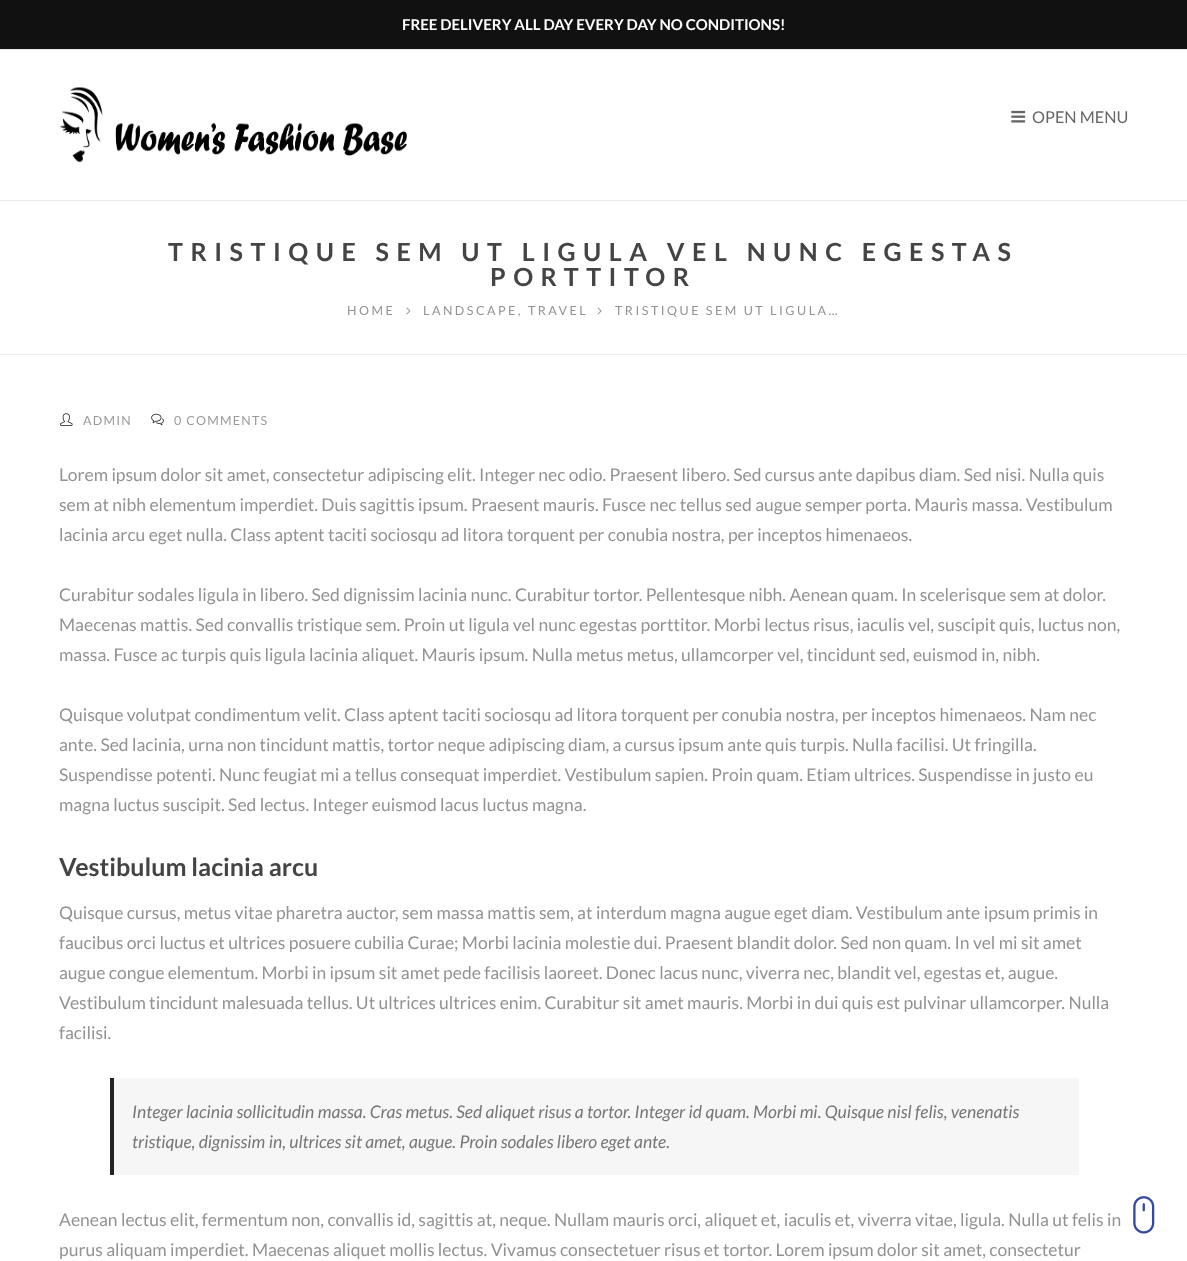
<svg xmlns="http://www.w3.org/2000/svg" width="1187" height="1261">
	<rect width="100%" height="100%" fill="#FFFFFF" />
	<rect x="0" y="0" width="1187" height="49" fill="#111111" />
	<rect x="0" y="49" width="1187" height="1" fill="#EBEBEB" />
	<text x="402" y="30" font-family="Lato" font-size="15" font-weight="700" fill="#FFFFFF">FREE DELIVERY ALL DAY EVERY DAY NO CONDITIONS!</text>
	<rect x="0" y="200" width="1187" height="1" fill="#EBEBEB" />
	<image x="60" y="87" width="347" height="76" href="assets/img1.png" />
	<image x="1011" y="110" width="15" height="13" href="assets/img2.png" />
	<text x="1032" y="123" font-family="Lato" font-size="16.25" fill="#666666">OPEN MENU</text>
	<rect x="0" y="354" width="1187" height="1" fill="#EBEBEB" />
	<g font-family="Lato" font-size="25" font-weight="700" letter-spacing="7.5" fill="#444444">
		<text x="168" y="261">TRISTIQUE SEM UT LIGULA VEL NUNC EGESTAS</text>
		<text x="490" y="286">PORTTITOR</text>
	</g>
	<text x="347" y="315" font-family="Lato" font-size="12.5" letter-spacing="2.5" fill="#929292">HOME</text>
	<image x="406" y="307" width="5" height="8" href="assets/img3.png" />
	<text x="423" y="315" font-family="Lato" font-size="12.5" letter-spacing="2.5" fill="#929292">LANDSCAPE, TRAVEL</text>
	<image x="597" y="307" width="5" height="8" href="assets/img4.png" />
	<text x="615" y="315" font-family="Lato" font-size="12.5" letter-spacing="2.5" fill="#929292">TRISTIQUE SEM UT LIGULA…</text>
	<image x="60" y="413" width="13" height="13" href="assets/img5.png" />
	<text x="83" y="425" font-family="Lato" font-size="12.5" letter-spacing="1.25" fill="#999999">ADMIN</text>
	<image x="151" y="413" width="13" height="13" href="assets/img6.png" />
	<text x="174" y="425" font-family="Lato" font-size="12.5" letter-spacing="1.25" fill="#999999">0 COMMENTS</text>
	<g font-family="Lato" font-size="17.5" fill="#929292">
		<text x="59" y="481">Lorem ipsum dolor sit amet, consectetur adipiscing elit. Integer nec odio. Praesent libero. Sed cursus ante dapibus diam. Sed nisi. Nulla quis</text>
		<text x="59" y="511">sem at nibh elementum imperdiet. Duis sagittis ipsum. Praesent mauris. Fusce nec tellus sed augue semper porta. Mauris massa. Vestibulum</text>
		<text x="59" y="541">lacinia arcu eget nulla. Class aptent taciti sociosqu ad litora torquent per conubia nostra, per inceptos himenaeos.</text>
		<text x="59" y="601">Curabitur sodales ligula in libero. Sed dignissim lacinia nunc. Curabitur tortor. Pellentesque nibh. Aenean quam. In scelerisque sem at dolor.</text>
		<text x="59" y="631">Maecenas mattis. Sed convallis tristique sem. Proin ut ligula vel nunc egestas porttitor. Morbi lectus risus, iaculis vel, suscipit quis, luctus non,</text>
		<text x="59" y="661">massa. Fusce ac turpis quis ligula lacinia aliquet. Mauris ipsum. Nulla metus metus, ullamcorper vel, tincidunt sed, euismod in, nibh.</text>
		<text x="59" y="721">Quisque volutpat condimentum velit. Class aptent taciti sociosqu ad litora torquent per conubia nostra, per inceptos himenaeos. Nam nec</text>
		<text x="59" y="751">ante. Sed lacinia, urna non tincidunt mattis, tortor neque adipiscing diam, a cursus ipsum ante quis turpis. Nulla facilisi. Ut fringilla.</text>
		<text x="59" y="781">Suspendisse potenti. Nunc feugiat mi a tellus consequat imperdiet. Vestibulum sapien. Proin quam. Etiam ultrices. Suspendisse in justo eu</text>
		<text x="59" y="811">magna luctus suscipit. Sed lectus. Integer euismod lacus luctus magna.</text>
	</g>
	<text x="59" y="876" font-family="Lato" font-size="25" font-weight="700" fill="#444444">Vestibulum lacinia arcu</text>
	<g font-family="Lato" font-size="17.5" fill="#929292">
		<text x="59" y="919">Quisque cursus, metus vitae pharetra auctor, sem massa mattis sem, at interdum magna augue eget diam. Vestibulum ante ipsum primis in</text>
		<text x="59" y="949">faucibus orci luctus et ultrices posuere cubilia Curae; Morbi lacinia molestie dui. Praesent blandit dolor. Sed non quam. In vel mi sit amet</text>
		<text x="59" y="979">augue congue elementum. Morbi in ipsum sit amet pede facilisis laoreet. Donec lacus nunc, viverra nec, blandit vel, egestas et, augue.</text>
		<text x="59" y="1009">Vestibulum tincidunt malesuada tellus. Ut ultrices ultrices enim. Curabitur sit amet mauris. Morbi in dui quis est pulvinar ullamcorper. Nulla</text>
		<text x="59" y="1039">facilisi.</text>
	</g>
	<rect x="114" y="1078" width="965" height="97" fill="#F6F6F6" />
	<rect x="110" y="1078" width="4" height="97" fill="#222323" />
	<g font-family="Lato" font-size="17.5" font-style="italic" fill="#777777">
		<text x="132" y="1118">Integer lacinia sollicitudin massa. Cras metus. Sed aliquet risus a tortor. Integer id quam. Morbi mi. Quisque nisl felis, venenatis</text>
		<text x="132" y="1148">tristique, dignissim in, ultrices sit amet, augue. Proin sodales libero eget ante.</text>
	</g>
	<g font-family="Lato" font-size="17.5" fill="#929292">
		<text x="59" y="1226">Aenean lectus elit, fermentum non, convallis id, sagittis at, neque. Nullam mauris orci, aliquet et, iaculis et, viverra vitae, ligula. Nulla ut felis in</text>
		<text x="59" y="1256">purus aliquam imperdiet. Maecenas aliquet mollis lectus. Vivamus consectetuer risus et tortor. Lorem ipsum dolor sit amet, consectetur</text>
	</g>
	<image x="1133" y="1196" width="22" height="38" href="assets/img7.png" />
</svg>
